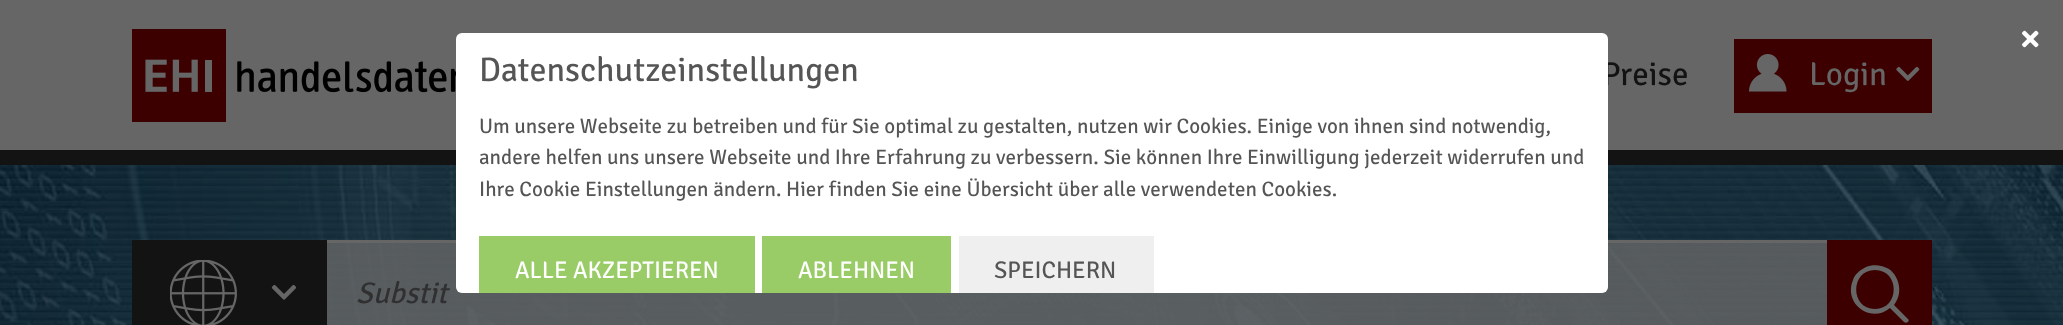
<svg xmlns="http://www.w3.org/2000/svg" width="2063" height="325">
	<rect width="100%" height="100%" fill="#666666" />
	<rect x="0" y="150" width="2063" height="15" fill="#131313" />
	<text x="1602" y="85" font-family="Signika Negative" font-size="33" fill="#131313">Preise</text>
	<image x="0" y="165" width="2063" height="160" href="assets/img5.png" />
	<rect x="327" y="243" width="1500" height="82" fill="#666666" fill-opacity="0.8" />
	<rect x="327" y="240" width="1500" height="3" fill="#666666" />
	<rect x="456" y="33" width="1152" height="260" rx="6" fill="#FFFFFF" />
	<image x="2022" y="30" width="17" height="18" href="assets/img1.png" />
	<text x="479" y="81" font-family="Signika Negative" font-size="34.1" fill="#555555">Datenschutzeinstellungen</text>
	<g font-family="Signika Negative" font-size="21" fill="#555555">
		<text x="479" y="133">Um unsere Webseite zu betreiben und für Sie optimal zu gestalten, nutzen wir Cookies. Einige von ihnen sind notwendig,</text>
		<text x="479" y="164">andere helfen uns unsere Webseite und Ihre Erfahrung zu verbessern. Sie können Ihre Einwilligung jederzeit widerrufen und</text>
		<text x="479" y="196">Ihre Cookie Einstellungen ändern. Hier finden Sie eine Übersicht über alle verwendeten Cookies.</text>
	</g>
	<rect x="479" y="236" width="276" height="57" fill="#99CC66" />
	<text x="515" y="278" font-family="Signika Negative" font-size="24" fill="#FFFFFF">ALLE AKZEPTIEREN</text>
	<rect x="762" y="236" width="189" height="57" fill="#99CC66" />
	<text x="798" y="278" font-family="Signika Negative" font-size="24" fill="#FFFFFF">ABLEHNEN</text>
	<rect x="959" y="236" width="195" height="57" fill="#EFEFEF" />
	<text x="994" y="278" font-family="Signika Negative" font-size="24" fill="#555555">SPEICHERN</text>
	<image x="132" y="29" width="324" height="93" href="assets/img2.png" />
	<rect x="1734" y="39" width="198" height="74" fill="#3D0000" />
	<image x="1749" y="54" width="38" height="38" href="assets/img3.png" />
	<text x="1809" y="85" font-family="Signika Negative" font-size="33" fill="#666666">Login</text>
	<image x="1896" y="66" width="24" height="15" href="assets/img4.png" />
	<rect x="132" y="240" width="195" height="85" fill="#131313" />
	<image x="170" y="260" width="67" height="65" href="assets/img6.png" />
	<image x="271" y="284" width="26" height="16" href="assets/img7.png" />
	<text x="356" y="303" font-family="Signika Negative" font-size="30" font-style="italic" fill="#303030">Substit</text>
	<rect x="1827" y="240" width="105" height="85" fill="#3D0000" />
	<path d="M1908 319L1894 305C1903 294 1900 277 1889 269C1882 265 1873 264 1866 267C1860 270 1855 274 1853 280C1843 304 1871 324 1890 308L1904 322C1907 324 1910 321 1908 319ZM1875 309C1850 309 1850 270 1875 270C1900 270 1900 309 1875 309Z" fill="#666666" />
</svg>
